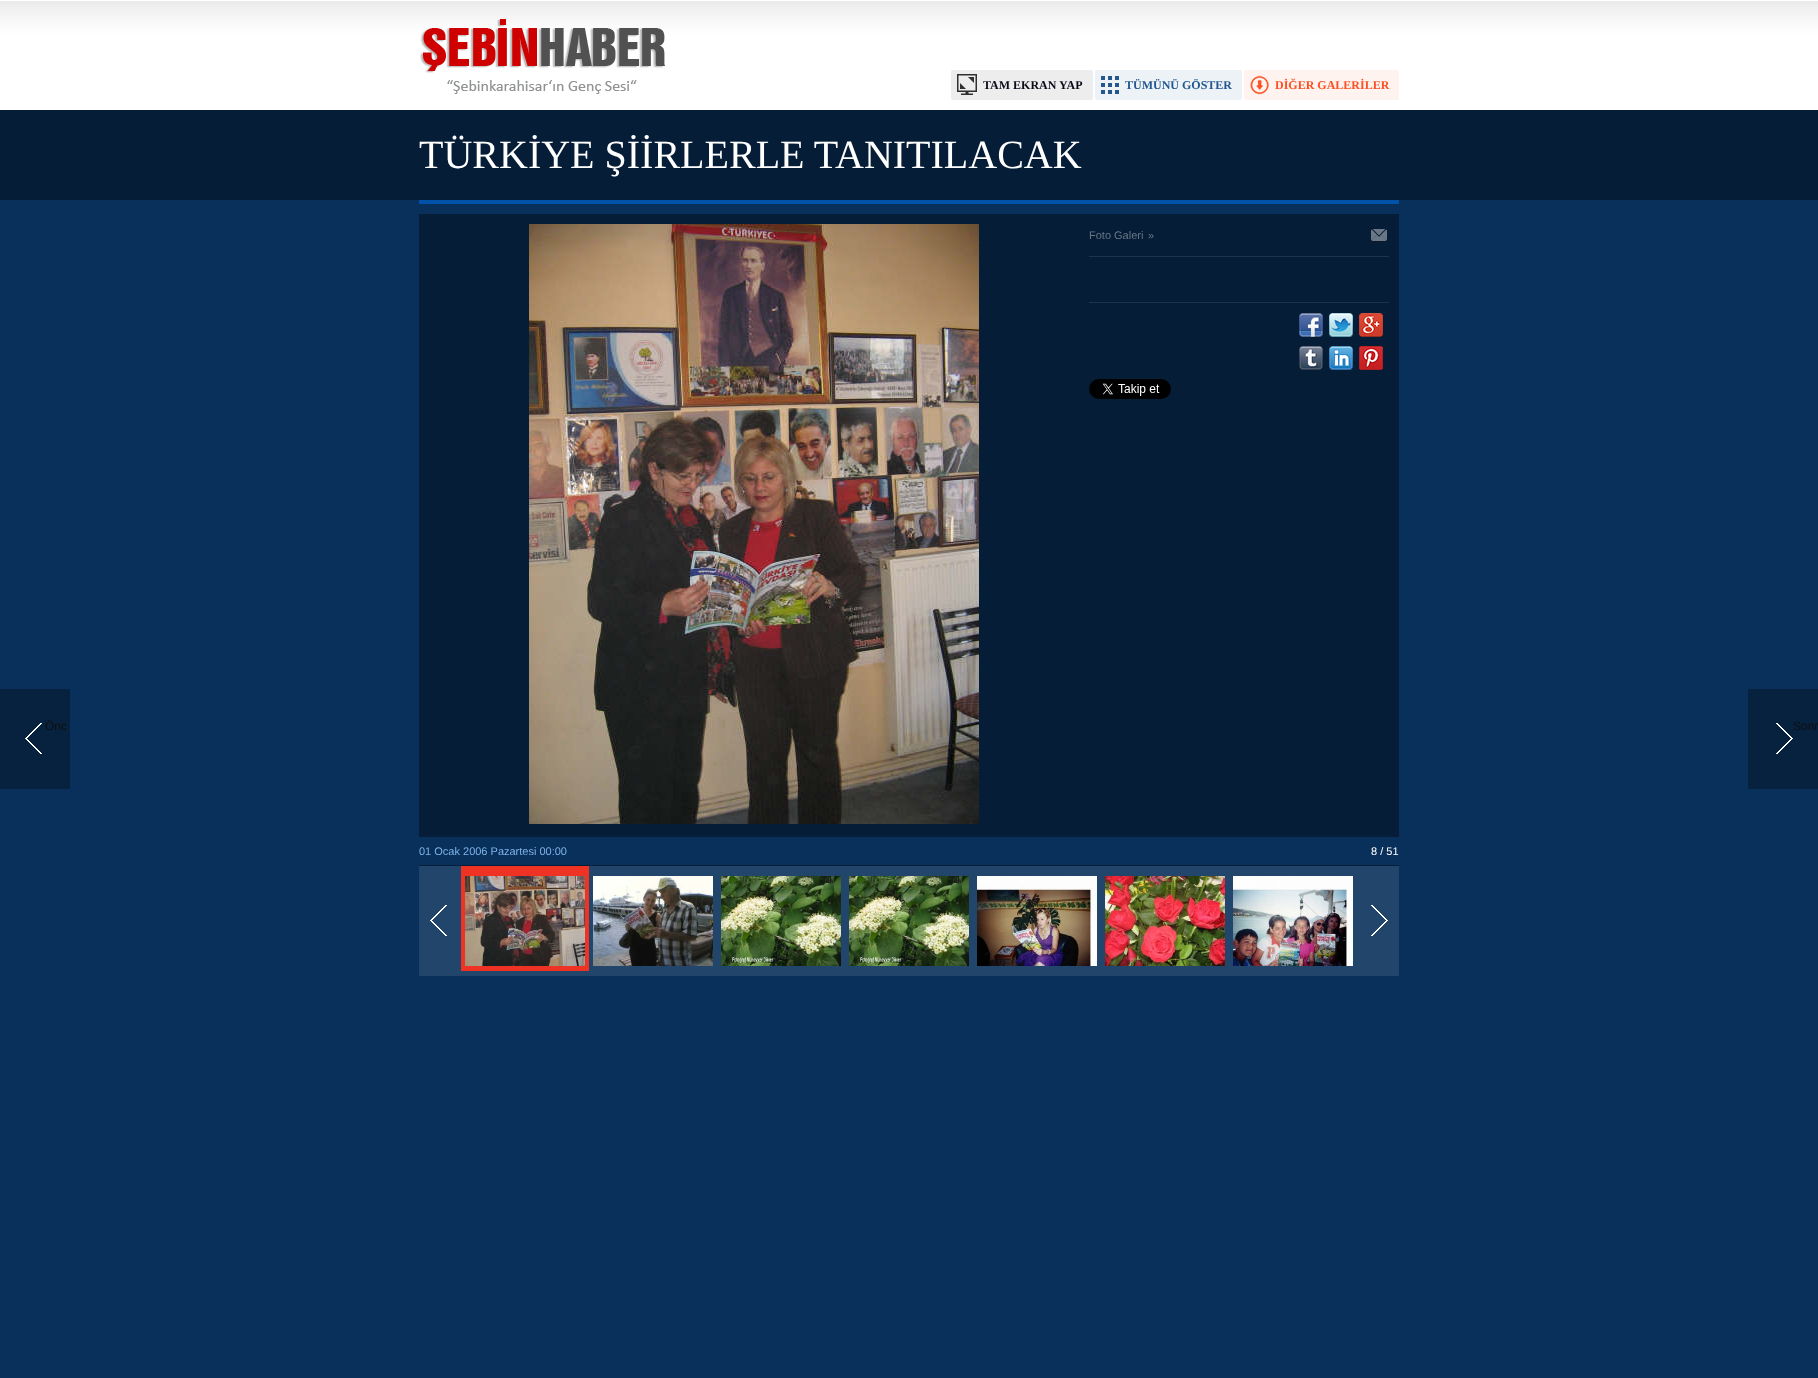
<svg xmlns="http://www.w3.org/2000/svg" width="1818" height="1378">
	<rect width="100%" height="100%" fill="#08305A" />
	<image x="0" y="0" width="1818" height="200" href="assets/img1.png" />
	<rect x="0" y="689" width="70" height="100" fill="#06223F" />
	<image x="25" y="723" width="17" height="31" href="assets/img2.png" />
	<text x="45" y="730" font-family="Liberation Sans" font-size="12" fill="#0F0F0F">Önc</text>
	<image x="420" y="19" width="245" height="75" href="assets/img3.png" />
	<rect x="951" y="70" width="142" height="30" rx="2" fill="#EDEDED" />
	<image x="957" y="74" width="20" height="21" href="assets/img4.png" />
	<text x="983" y="89" font-family="Liberation Serif" font-size="12" font-weight="700" fill="#0C0A18">TAM EKRAN YAP</text>
	<rect x="1095" y="70" width="147" height="30" rx="2" fill="#EDF2F7" />
	<image x="1101" y="76" width="18" height="18" href="assets/img5.png" />
	<text x="1125" y="89" font-family="Liberation Serif" font-size="12" font-weight="700" fill="#21568E">TÜMÜNÜ GÖSTER</text>
	<rect x="1244" y="70" width="155" height="30" rx="2" fill="#FFF3EF" />
	<image x="1250" y="75" width="19" height="20" href="assets/img6.png" />
	<text x="1275" y="89" font-family="Liberation Serif" font-size="12" font-weight="700" fill="#FD4F20">DİĞER GALERİLER</text>
	<rect x="419" y="200" width="980" height="4" fill="#0052A8" />
	<text x="419" y="168" font-family="Liberation Serif" font-size="40" fill="#FFFFFF">TÜRKİYE ŞİİRLERLE TANITILACAK</text>
	<rect x="419" y="214" width="980" height="623" fill="#051D36" />
	<image x="529" y="224" width="450" height="600" href="assets/img7.png" />
	<g font-family="Liberation Sans" font-size="11" fill="#697786">
		<text x="1089" y="239">Foto Galeri</text>
		<text x="1148" y="239">»</text>
	</g>
	<image x="1371" y="229" width="16" height="13" href="assets/img8.png" />
	<rect x="1089" y="256" width="300" height="1" fill="#1E344A" />
	<rect x="1089" y="302" width="300" height="1" fill="#1E344A" />
	<image x="1299" y="313" width="24" height="24" href="assets/img9.png" />
	<image x="1329" y="313" width="24" height="24" href="assets/img10.png" />
	<image x="1359" y="313" width="24" height="24" href="assets/img11.png" />
	<image x="1299" y="346" width="24" height="24" href="assets/img12.png" />
	<image x="1329" y="346" width="24" height="24" href="assets/img13.png" />
	<image x="1359" y="346" width="24" height="24" href="assets/img14.png" />
	<image x="1089" y="379" width="82" height="20" href="assets/img15.png" />
	<text x="419" y="855" font-family="Liberation Sans" font-size="11" fill="#7DB2E9">01 Ocak 2006 Pazartesi 00:00</text>
	<text x="1371" y="855" font-family="Liberation Sans" font-size="11" fill="#FFFFFF">8 / 51</text>
	<rect x="419" y="866" width="980" height="110" fill="#21456B" />
	<rect x="419" y="865" width="980" height="1" fill="#051D36" />
	<image x="430" y="905" width="17" height="31" href="assets/img16.png" />
	<rect x="461" y="866" width="128" height="105" fill="#EE3224" />
	<image x="465" y="876" width="120" height="90" href="assets/img17.png" />
	<image x="593" y="876" width="120" height="90" href="assets/img18.png" />
	<image x="721" y="876" width="120" height="90" href="assets/img19.png" />
	<image x="849" y="876" width="120" height="90" href="assets/img19.png" />
	<image x="977" y="876" width="120" height="90" href="assets/img20.png" />
	<image x="1105" y="876" width="120" height="90" href="assets/img21.png" />
	<image x="1233" y="876" width="120" height="90" href="assets/img22.png" />
	<image x="1371" y="905" width="17" height="31" href="assets/img23.png" />
	<rect x="1748" y="689" width="70" height="100" fill="#06223F" />
	<image x="1776" y="723" width="17" height="31" href="assets/img24.png" />
	<text x="1793" y="730" font-family="Liberation Sans" font-size="12" fill="#0F0F0F">Sonr</text>
</svg>
